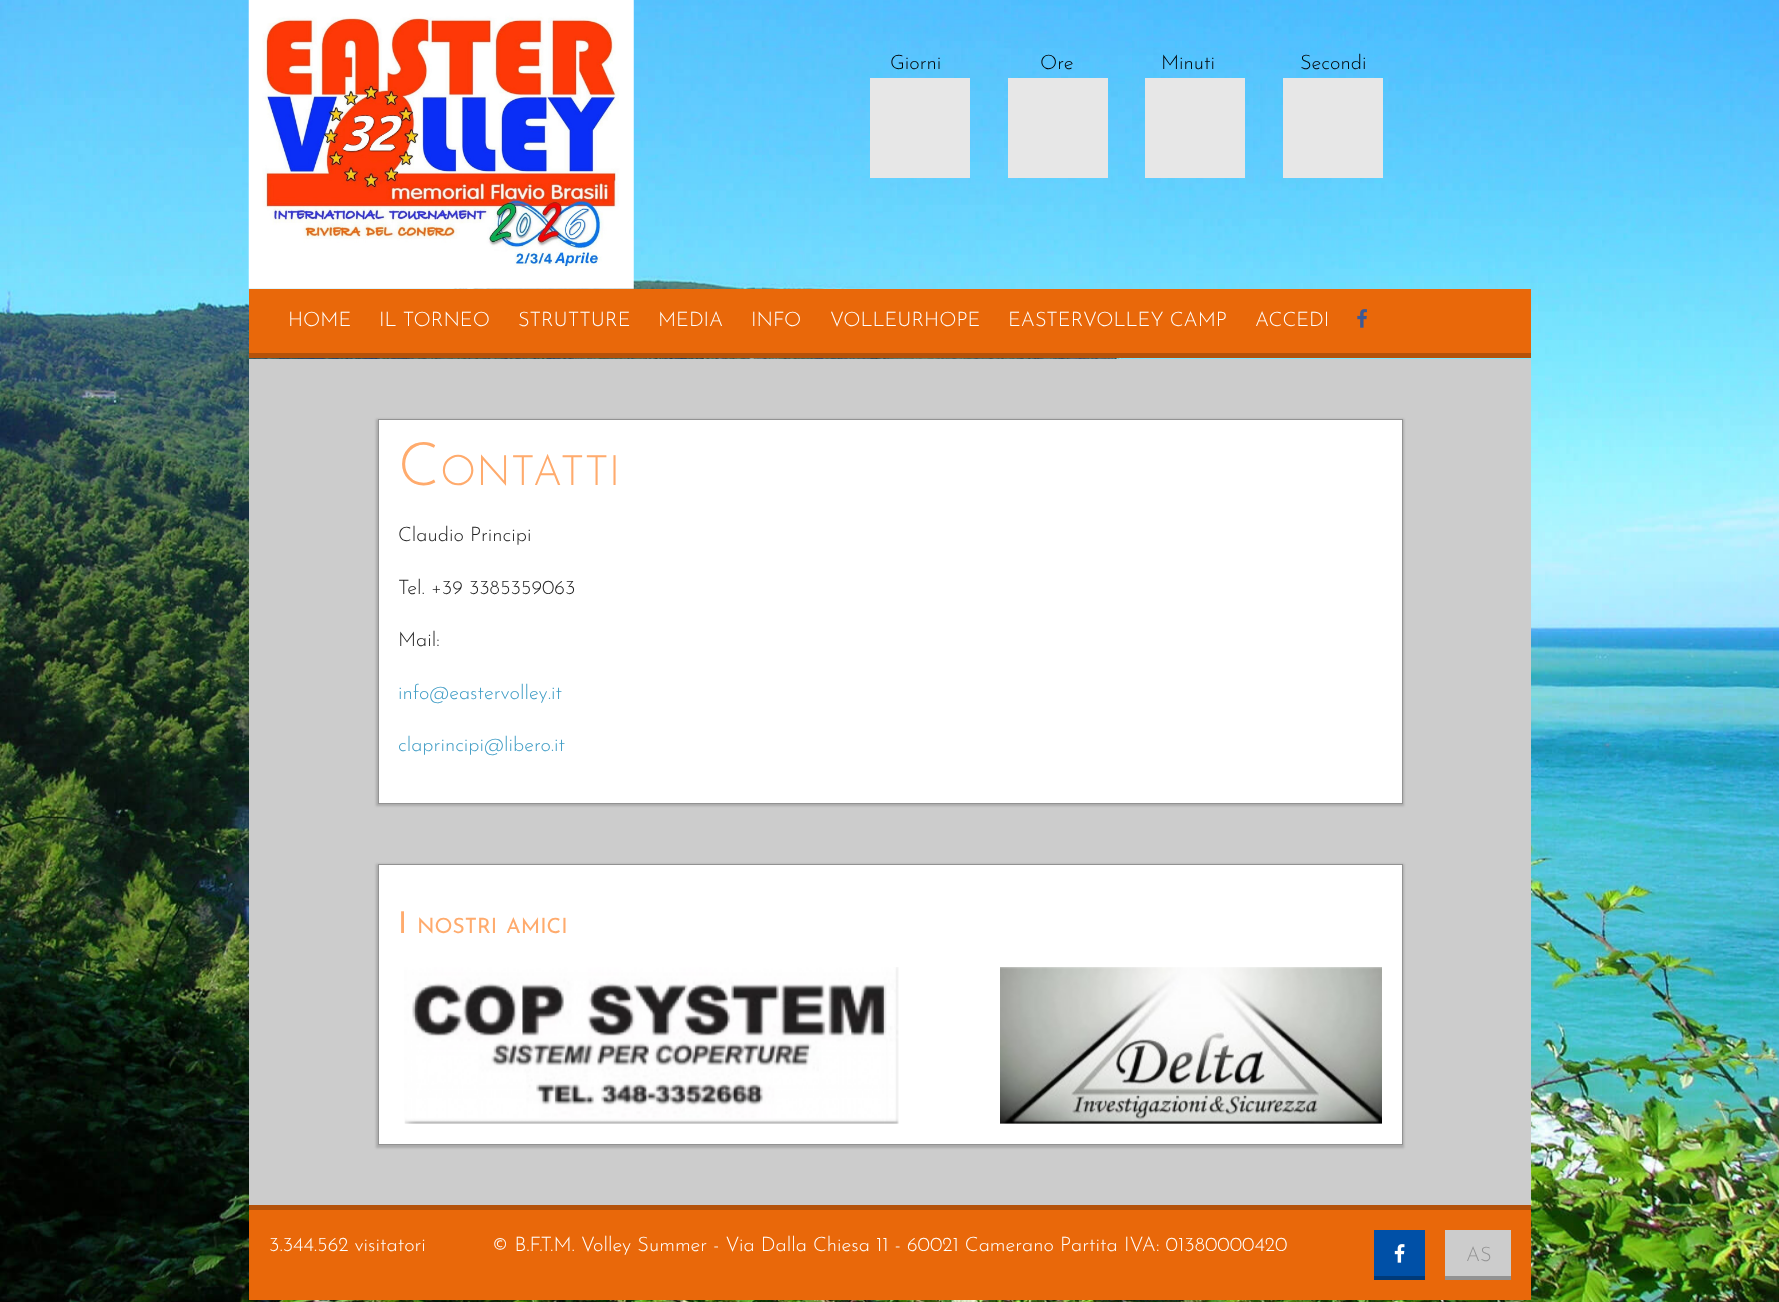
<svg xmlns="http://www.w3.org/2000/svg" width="1779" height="1302">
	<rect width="100%" height="100%" fill="#FFFFFF" />
	<image x="0" y="0" width="1779" height="1302" href="assets/img1.png" />
	<image x="248" y="0" width="386" height="289" href="assets/img2.png" />
	<g font-family="Josefin Sans" font-size="20" font-weight="300" fill="#000000">
		<text x="890" y="69">Giorni</text>
		<text x="1040" y="69">Ore</text>
		<text x="1161" y="69">Minuti</text>
		<text x="1300" y="69">Secondi</text>
	</g>
	<rect x="870" y="78" width="50" height="100" fill="#E7E7E7" />
	<rect x="920" y="78" width="50" height="100" fill="#E7E7E7" />
	<rect x="1008" y="78" width="50" height="100" fill="#E7E7E7" />
	<rect x="1058" y="78" width="50" height="100" fill="#E7E7E7" />
	<rect x="1145" y="78" width="50" height="100" fill="#E7E7E7" />
	<rect x="1195" y="78" width="50" height="100" fill="#E7E7E7" />
	<rect x="1283" y="78" width="50" height="100" fill="#E7E7E7" />
	<rect x="1333" y="78" width="50" height="100" fill="#E7E7E7" />
	<rect x="249" y="289" width="1282" height="64" fill="#E9680A" />
	<rect x="249" y="353" width="1282" height="5" fill="#B4520A" />
	<g font-family="Josefin Sans" font-size="20" font-weight="300" fill="#FFFFFF">
		<text x="288" y="326">HOME</text>
		<text x="379" y="326">IL TORNEO</text>
		<text x="518" y="326">STRUTTURE</text>
		<text x="658" y="326">MEDIA</text>
		<text x="751" y="326">INFO</text>
		<text x="830" y="326">VOLLEURHOPE</text>
		<text x="1008" y="326">EASTERVOLLEY CAMP</text>
		<text x="1255" y="326">ACCEDI</text>
	</g>
	<image x="1357" y="309" width="10" height="19" href="assets/img3.png" />
	<rect x="249" y="359" width="1282" height="846" fill="#CCCCCC" />
	<rect x="376" y="419" width="1028" height="387" fill="#AAAAAA" filter="blur(1px)" />
	<rect x="378.5" y="419.5" width="1024" height="384" fill="#FFFFFF" stroke="#929292" />
	<text x="398" y="485" font-family="Josefin Sans" font-size="60" font-weight="300" fill="#FFAB6D">C</text>
	<text x="440" y="485" font-family="Josefin Sans" font-size="42" font-weight="300" fill="#FFAB6D">ONTATTI</text>
	<g font-family="Josefin Sans" font-size="20" font-weight="300" fill="#222222">
		<text x="398" y="541">Claudio Principi</text>
		<text x="398" y="594">Tel. +39 3385359063</text>
		<text x="398" y="646">Mail:</text>
	</g>
	<g font-family="Josefin Sans" font-size="20" font-weight="300" fill="#3F9CC5">
		<text x="398" y="699">info@eastervolley.it</text>
		<text x="398" y="751">claprincipi@libero.it</text>
	</g>
	<rect x="376" y="864" width="1028" height="284" fill="#AAAAAA" filter="blur(1px)" />
	<rect x="378.5" y="864.5" width="1024" height="280" fill="#FFFFFF" stroke="#929292" />
	<text x="398" y="933" font-family="Josefin Sans" font-size="30" fill="#FFAB6D">I</text>
	<g font-family="Josefin Sans" font-size="21" fill="#FFAB6D">
		<text x="417" y="933">NOSTRI</text>
		<text x="506" y="933">AMICI</text>
	</g>
	<image x="404" y="967" width="495" height="157" href="assets/img4.png" />
	<image x="1000" y="967" width="382" height="157" href="assets/img5.png" />
	<rect x="249" y="1210" width="1282" height="90" fill="#E9680A" />
	<rect x="249" y="1205" width="1282" height="5" fill="#B4520A" />
	<g font-family="Josefin Sans" font-size="20" font-weight="300" fill="#FFFFFF">
		<text x="269" y="1251">3.344.562 visitatori</text>
		<text x="492" y="1251">© B.F.T.M. Volley Summer - Via Dalla Chiesa 11 - 60021 Camerano Partita IVA: 01380000420</text>
	</g>
	<rect x="1374" y="1230" width="51" height="46" fill="#0050A7" />
	<rect x="1374" y="1276" width="51" height="4" fill="#003A79" />
	<image x="1394" y="1244" width="11" height="19" href="assets/img6.png" />
	<rect x="1445" y="1230" width="66" height="46" fill="#CCCCCC" />
	<rect x="1445" y="1276" width="66" height="4" fill="#929292" />
	<text x="1466" y="1261" font-family="Josefin Sans" font-size="20" font-weight="300" fill="#929292">AS</text>
</svg>
